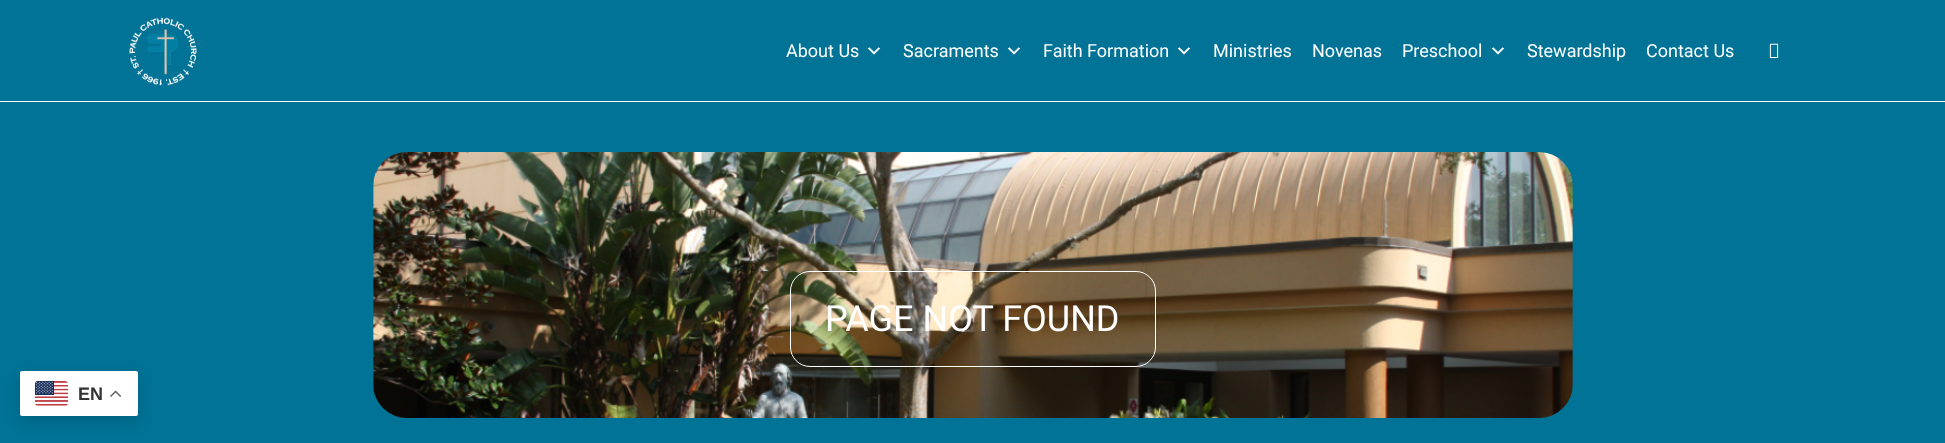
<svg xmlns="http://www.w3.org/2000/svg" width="1945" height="443">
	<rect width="100%" height="100%" fill="#007396" />
	<rect x="0" y="101" width="1945" height="1" fill="#FFFFFF" />
	<image x="129" y="17" width="68" height="69" href="assets/img1.png" />
	<text x="786" y="57" font-family="Roboto" font-size="18" fill="#FFFFFF">About Us</text>
	<image x="867" y="47" width="14" height="8" href="assets/img2.png" />
	<text x="903" y="57" font-family="Roboto" font-size="18" fill="#FFFFFF">Sacraments</text>
	<image x="1007" y="47" width="14" height="8" href="assets/img2.png" />
	<text x="1043" y="57" font-family="Roboto" font-size="18" fill="#FFFFFF">Faith Formation</text>
	<image x="1177" y="47" width="14" height="8" href="assets/img2.png" />
	<g font-family="Roboto" font-size="18" fill="#FFFFFF">
		<text x="1213" y="57">Ministries</text>
		<text x="1312" y="57">Novenas</text>
		<text x="1402" y="57">Preschool</text>
	</g>
	<image x="1491" y="47" width="14" height="8" href="assets/img2.png" />
	<g font-family="Roboto" font-size="18" fill="#FFFFFF">
		<text x="1527" y="57">Stewardship</text>
		<text x="1646" y="57">Contact Us</text>
	</g>
	<image x="1769" y="43" width="10" height="15" href="assets/img3.png" />
	<image x="373" y="152" width="1200" height="266" href="assets/img4.png" />
	<rect x="790.5" y="271.5" width="365" height="95" rx="19.5" fill="none" stroke="#FFFFFF" />
	<text x="825" y="331" font-family="Roboto" font-size="36" fill="#FFFFFF">PAGE NOT FOUND</text>
	<rect x="20" y="376" width="118" height="45" rx="2" fill="#000000" fill-opacity="0.15" filter="blur(7.5px)" />
	<rect x="20" y="371" width="118" height="45" rx="2" fill="#FFFFFF" />
	<image x="35" y="381" width="33" height="25" href="assets/img5.png" />
	<text x="78" y="400" font-family="Liberation Sans" font-size="18" font-weight="700" fill="#333333">EN</text>
	<image x="110" y="390" width="11" height="7" href="assets/img6.png" />
</svg>
